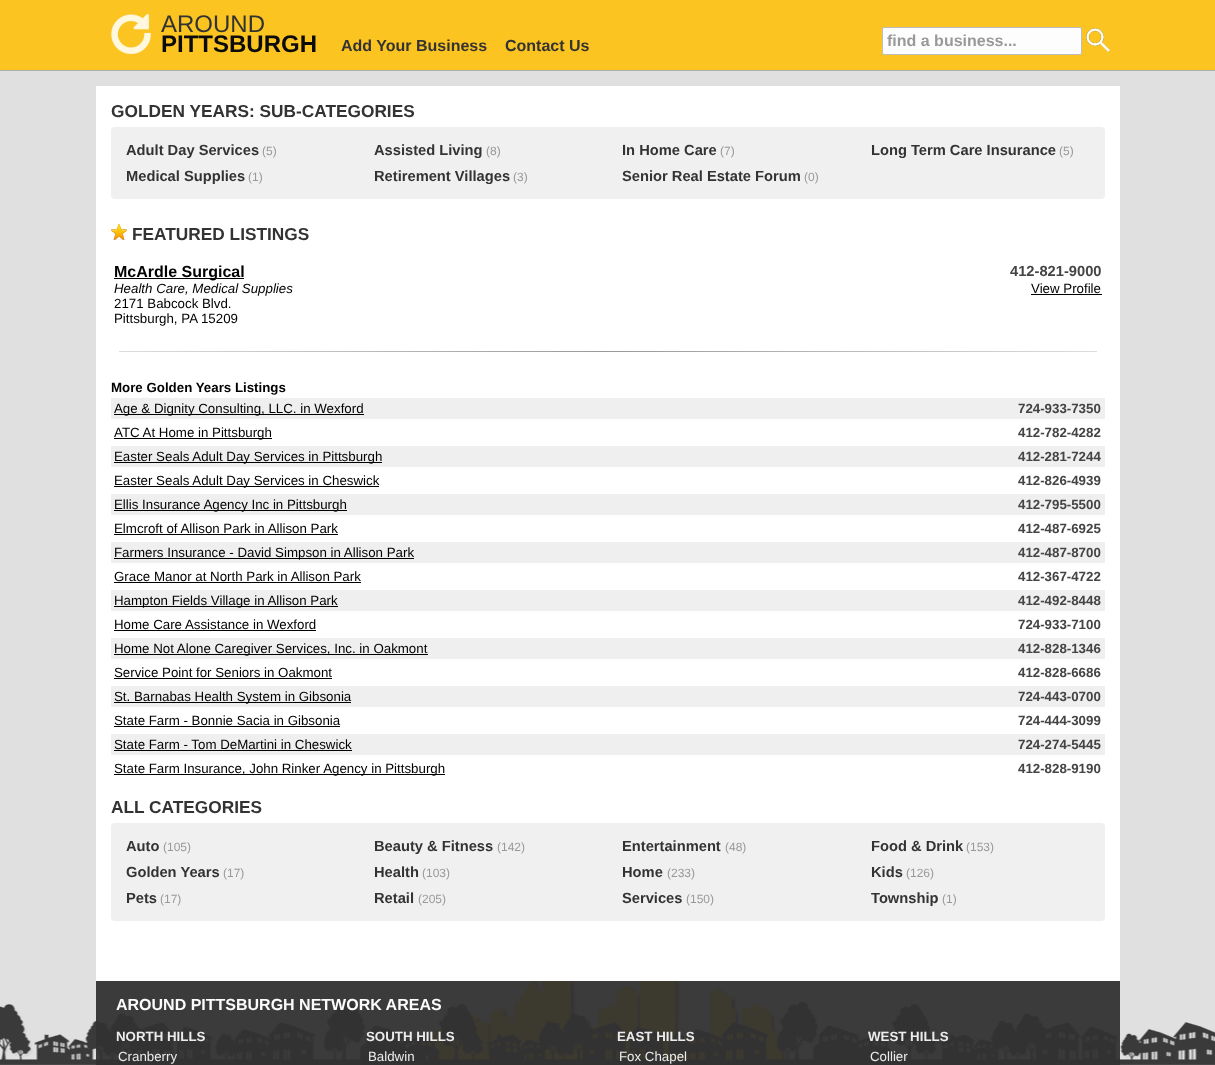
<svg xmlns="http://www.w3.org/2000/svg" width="1215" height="1065">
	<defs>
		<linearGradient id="g1" gradientUnits="userSpaceOnUse" x1="119" y1="352" x2="1097" y2="351"><stop offset="0" stop-color="#DDDDDD" /><stop offset="0.5" stop-color="#999999" /><stop offset="1" stop-color="#DDDDDD" /></linearGradient>
	</defs>
	<rect width="100%" height="100%" fill="#E0E0E0" />
	<image x="0" y="981" width="1215" height="84" href="assets/img1.png" />
	<rect x="0" y="0" width="1215" height="70" fill="#FBC420" />
	<rect x="0" y="70" width="1215" height="1" fill="#ADADAD" />
	<image x="111" y="14" width="40" height="40" href="assets/img2.png" />
	<text x="161" y="32" font-family="Liberation Sans" font-size="24" fill="#333333">AROUND</text>
	<text x="161" y="52" font-family="Liberation Sans" font-size="24" font-weight="700" fill="#0B0B0B">PITTSBURGH</text>
	<g font-family="Liberation Sans" font-size="16" font-weight="700" fill="#333333">
		<text x="341" y="51">Add Your Business</text>
		<text x="505" y="51">Contact Us</text>
	</g>
	<rect x="882.5" y="27.5" width="199" height="27" rx="1.5" fill="#FDFDFD" stroke="#BDBDBD" />
	<text x="887" y="46" font-family="Liberation Sans" font-size="16" font-weight="700" fill="#999999">find a business...</text>
	<image x="1086" y="28" width="24" height="24" href="assets/img3.png" />
	<rect x="96" y="86" width="1024" height="895" fill="#FFFFFF" />
	<text x="111" y="117" font-family="Liberation Sans" font-size="17.3" font-weight="700" fill="#333333">GOLDEN YEARS: SUB-CATEGORIES</text>
	<rect x="111" y="127" width="994" height="72" rx="4" fill="#F0F0F0" />
	<text x="126" y="155" font-family="Liberation Sans" font-size="14.7" font-weight="700" fill="#333333">Adult Day Services</text>
	<text x="262" y="155" font-family="Liberation Sans" font-size="12" fill="#999999">(5)</text>
	<text x="374" y="155" font-family="Liberation Sans" font-size="14.7" font-weight="700" fill="#333333">Assisted Living</text>
	<text x="486" y="155" font-family="Liberation Sans" font-size="12" fill="#999999">(8)</text>
	<text x="622" y="155" font-family="Liberation Sans" font-size="14.7" font-weight="700" fill="#333333">In Home Care</text>
	<text x="720" y="155" font-family="Liberation Sans" font-size="12" fill="#999999">(7)</text>
	<text x="871" y="155" font-family="Liberation Sans" font-size="14.7" font-weight="700" fill="#333333">Long Term Care Insurance</text>
	<text x="1059" y="155" font-family="Liberation Sans" font-size="12" fill="#999999">(5)</text>
	<text x="126" y="181" font-family="Liberation Sans" font-size="14.7" font-weight="700" fill="#333333">Medical Supplies</text>
	<text x="248" y="181" font-family="Liberation Sans" font-size="12" fill="#999999">(1)</text>
	<text x="374" y="181" font-family="Liberation Sans" font-size="14.7" font-weight="700" fill="#333333">Retirement Villages</text>
	<text x="513" y="181" font-family="Liberation Sans" font-size="12" fill="#999999">(3)</text>
	<text x="622" y="181" font-family="Liberation Sans" font-size="14.7" font-weight="700" fill="#333333">Senior Real Estate Forum</text>
	<text x="804" y="181" font-family="Liberation Sans" font-size="12" fill="#999999">(0)</text>
	<image x="111" y="224" width="16" height="16" href="assets/img4.png" />
	<text x="132" y="240" font-family="Liberation Sans" font-size="17.3" font-weight="700" fill="#333333">FEATURED LISTINGS</text>
	<rect x="114" y="278" width="130" height="1" fill="#000000" />
	<text x="114" y="277" font-family="Liberation Sans" font-size="16" font-weight="700" fill="#000000">McArdle Surgical</text>
	<text x="1010" y="276" font-family="Liberation Sans" font-size="14.7" font-weight="700" fill="#444444">412-821-9000</text>
	<text x="114" y="293" font-family="Liberation Sans" font-size="13.3" font-style="italic" fill="#000000">Health Care, Medical Supplies</text>
	<text x="1031" y="293" font-family="Liberation Sans" font-size="13.3" fill="#000000">View Profile</text>
	<rect x="1031" y="294" width="71" height="1" fill="#000000" />
	<g font-family="Liberation Sans" font-size="13.3" fill="#000000">
		<text x="114" y="308">2171 Babcock Blvd.</text>
		<text x="114" y="323">Pittsburgh, PA 15209</text>
	</g>
	<rect x="119" y="351" width="978" height="1" fill="url(#g1)" />
	<text x="111" y="392" font-family="Liberation Sans" font-size="13.3" font-weight="700" fill="#000000">More Golden Years Listings</text>
	<rect x="111" y="398" width="994" height="21" fill="#EFEFEF" />
	<rect x="114" y="414" width="250" height="1" fill="#000000" />
	<text x="114" y="413" font-family="Liberation Sans" font-size="13.3" fill="#000000">Age &amp; Dignity Consulting, LLC. in Wexford</text>
	<text x="1018" y="413" font-family="Liberation Sans" font-size="13.3" font-weight="700" fill="#444444">724-933-7350</text>
	<rect x="114" y="438" width="158" height="1" fill="#000000" />
	<text x="114" y="437" font-family="Liberation Sans" font-size="13.3" fill="#000000">ATC At Home in Pittsburgh</text>
	<text x="1018" y="437" font-family="Liberation Sans" font-size="13.3" font-weight="700" fill="#444444">412-782-4282</text>
	<rect x="111" y="446" width="994" height="21" fill="#EFEFEF" />
	<rect x="114" y="462" width="268" height="1" fill="#000000" />
	<text x="114" y="461" font-family="Liberation Sans" font-size="13.3" fill="#000000">Easter Seals Adult Day Services in Pittsburgh</text>
	<text x="1018" y="461" font-family="Liberation Sans" font-size="13.3" font-weight="700" fill="#444444">412-281-7244</text>
	<rect x="114" y="486" width="265" height="1" fill="#000000" />
	<text x="114" y="485" font-family="Liberation Sans" font-size="13.3" fill="#000000">Easter Seals Adult Day Services in Cheswick</text>
	<text x="1018" y="485" font-family="Liberation Sans" font-size="13.3" font-weight="700" fill="#444444">412-826-4939</text>
	<rect x="111" y="494" width="994" height="21" fill="#EFEFEF" />
	<rect x="114" y="510" width="233" height="1" fill="#000000" />
	<text x="114" y="509" font-family="Liberation Sans" font-size="13.3" fill="#000000">Ellis Insurance Agency Inc in Pittsburgh</text>
	<text x="1018" y="509" font-family="Liberation Sans" font-size="13.3" font-weight="700" fill="#444444">412-795-5500</text>
	<text x="114" y="533" font-family="Liberation Sans" font-size="13.3" fill="#000000">Elmcroft of Allison Park in Allison Park</text>
	<rect x="114" y="534" width="224" height="1" fill="#000000" />
	<text x="1018" y="533" font-family="Liberation Sans" font-size="13.3" font-weight="700" fill="#444444">412-487-6925</text>
	<rect x="111" y="542" width="994" height="21" fill="#EFEFEF" />
	<rect x="114" y="558" width="300" height="1" fill="#000000" />
	<text x="114" y="557" font-family="Liberation Sans" font-size="13.3" fill="#000000">Farmers Insurance - David Simpson in Allison Park</text>
	<text x="1018" y="557" font-family="Liberation Sans" font-size="13.3" font-weight="700" fill="#444444">412-487-8700</text>
	<text x="114" y="581" font-family="Liberation Sans" font-size="13.3" fill="#000000">Grace Manor at North Park in Allison Park</text>
	<rect x="114" y="582" width="247" height="1" fill="#000000" />
	<text x="1018" y="581" font-family="Liberation Sans" font-size="13.3" font-weight="700" fill="#444444">412-367-4722</text>
	<rect x="111" y="590" width="994" height="21" fill="#EFEFEF" />
	<rect x="114" y="606" width="224" height="1" fill="#000000" />
	<text x="114" y="605" font-family="Liberation Sans" font-size="13.3" fill="#000000">Hampton Fields Village in Allison Park</text>
	<text x="1018" y="605" font-family="Liberation Sans" font-size="13.3" font-weight="700" fill="#444444">412-492-8448</text>
	<text x="114" y="629" font-family="Liberation Sans" font-size="13.3" fill="#000000">Home Care Assistance in Wexford</text>
	<rect x="114" y="630" width="202" height="1" fill="#000000" />
	<text x="1018" y="629" font-family="Liberation Sans" font-size="13.3" font-weight="700" fill="#444444">724-933-7100</text>
	<rect x="111" y="638" width="994" height="21" fill="#EFEFEF" />
	<rect x="114" y="654" width="314" height="1" fill="#000000" />
	<text x="114" y="653" font-family="Liberation Sans" font-size="13.3" fill="#000000">Home Not Alone Caregiver Services, Inc. in Oakmont</text>
	<text x="1018" y="653" font-family="Liberation Sans" font-size="13.3" font-weight="700" fill="#444444">412-828-1346</text>
	<text x="114" y="677" font-family="Liberation Sans" font-size="13.3" fill="#000000">Service Point for Seniors in Oakmont</text>
	<rect x="114" y="678" width="218" height="1" fill="#000000" />
	<text x="1018" y="677" font-family="Liberation Sans" font-size="13.3" font-weight="700" fill="#444444">412-828-6686</text>
	<rect x="111" y="686" width="994" height="21" fill="#EFEFEF" />
	<rect x="114" y="702" width="237" height="1" fill="#000000" />
	<text x="114" y="701" font-family="Liberation Sans" font-size="13.3" fill="#000000">St. Barnabas Health System in Gibsonia</text>
	<text x="1018" y="701" font-family="Liberation Sans" font-size="13.3" font-weight="700" fill="#444444">724-443-0700</text>
	<text x="114" y="725" font-family="Liberation Sans" font-size="13.3" fill="#000000">State Farm - Bonnie Sacia in Gibsonia</text>
	<rect x="114" y="726" width="226" height="1" fill="#000000" />
	<text x="1018" y="725" font-family="Liberation Sans" font-size="13.3" font-weight="700" fill="#444444">724-444-3099</text>
	<rect x="111" y="734" width="994" height="21" fill="#EFEFEF" />
	<text x="114" y="749" font-family="Liberation Sans" font-size="13.3" fill="#000000">State Farm - Tom DeMartini in Cheswick</text>
	<rect x="114" y="750" width="238" height="1" fill="#000000" />
	<text x="1018" y="749" font-family="Liberation Sans" font-size="13.3" font-weight="700" fill="#444444">724-274-5445</text>
	<rect x="114" y="774" width="331" height="1" fill="#000000" />
	<text x="114" y="773" font-family="Liberation Sans" font-size="13.3" fill="#000000">State Farm Insurance, John Rinker Agency in Pittsburgh</text>
	<text x="1018" y="773" font-family="Liberation Sans" font-size="13.3" font-weight="700" fill="#444444">412-828-9190</text>
	<text x="111" y="813" font-family="Liberation Sans" font-size="17.3" font-weight="700" fill="#333333">ALL CATEGORIES</text>
	<rect x="111" y="823" width="994" height="98" rx="4" fill="#F0F0F0" />
	<text x="126" y="851" font-family="Liberation Sans" font-size="14.7" font-weight="700" fill="#333333">Auto</text>
	<text x="163" y="851" font-family="Liberation Sans" font-size="12" fill="#999999">(105)</text>
	<text x="374" y="851" font-family="Liberation Sans" font-size="14.7" font-weight="700" fill="#333333">Beauty &amp; Fitness</text>
	<text x="497" y="851" font-family="Liberation Sans" font-size="12" fill="#999999">(142)</text>
	<text x="622" y="851" font-family="Liberation Sans" font-size="14.7" font-weight="700" fill="#333333">Entertainment</text>
	<text x="725" y="851" font-family="Liberation Sans" font-size="12" fill="#999999">(48)</text>
	<text x="871" y="851" font-family="Liberation Sans" font-size="14.7" font-weight="700" fill="#333333">Food &amp; Drink</text>
	<text x="966" y="851" font-family="Liberation Sans" font-size="12" fill="#999999">(153)</text>
	<text x="126" y="877" font-family="Liberation Sans" font-size="14.7" font-weight="700" fill="#333333">Golden Years</text>
	<text x="223" y="877" font-family="Liberation Sans" font-size="12" fill="#999999">(17)</text>
	<text x="374" y="877" font-family="Liberation Sans" font-size="14.7" font-weight="700" fill="#333333">Health</text>
	<text x="422" y="877" font-family="Liberation Sans" font-size="12" fill="#999999">(103)</text>
	<text x="622" y="877" font-family="Liberation Sans" font-size="14.7" font-weight="700" fill="#333333">Home</text>
	<text x="667" y="877" font-family="Liberation Sans" font-size="12" fill="#999999">(233)</text>
	<text x="871" y="877" font-family="Liberation Sans" font-size="14.7" font-weight="700" fill="#333333">Kids</text>
	<text x="906" y="877" font-family="Liberation Sans" font-size="12" fill="#999999">(126)</text>
	<text x="126" y="903" font-family="Liberation Sans" font-size="14.7" font-weight="700" fill="#333333">Pets</text>
	<text x="160" y="903" font-family="Liberation Sans" font-size="12" fill="#999999">(17)</text>
	<text x="374" y="903" font-family="Liberation Sans" font-size="14.7" font-weight="700" fill="#333333">Retail</text>
	<text x="418" y="903" font-family="Liberation Sans" font-size="12" fill="#999999">(205)</text>
	<text x="622" y="903" font-family="Liberation Sans" font-size="14.7" font-weight="700" fill="#333333">Services</text>
	<text x="686" y="903" font-family="Liberation Sans" font-size="12" fill="#999999">(150)</text>
	<text x="871" y="903" font-family="Liberation Sans" font-size="14.7" font-weight="700" fill="#333333">Township</text>
	<text x="942" y="903" font-family="Liberation Sans" font-size="12" fill="#999999">(1)</text>
	<rect x="96" y="981" width="1024" height="84" fill="#323232" fill-opacity="0.95" />
	<text x="116" y="1010" font-family="Liberation Sans" font-size="16" font-weight="700" fill="#FCFCFC">AROUND PITTSBURGH NETWORK AREAS</text>
	<text x="116" y="1041" font-family="Liberation Sans" font-size="13.3" font-weight="700" fill="#ECECEC">NORTH HILLS</text>
	<text x="118" y="1061" font-family="Liberation Sans" font-size="13.3" fill="#ECECEC">Cranberry</text>
	<text x="366" y="1041" font-family="Liberation Sans" font-size="13.3" font-weight="700" fill="#ECECEC">SOUTH HILLS</text>
	<text x="368" y="1061" font-family="Liberation Sans" font-size="13.3" fill="#ECECEC">Baldwin</text>
	<text x="617" y="1041" font-family="Liberation Sans" font-size="13.3" font-weight="700" fill="#ECECEC">EAST HILLS</text>
	<text x="619" y="1061" font-family="Liberation Sans" font-size="13.3" fill="#ECECEC">Fox Chapel</text>
	<text x="868" y="1041" font-family="Liberation Sans" font-size="13.3" font-weight="700" fill="#ECECEC">WEST HILLS</text>
	<text x="870" y="1061" font-family="Liberation Sans" font-size="13.3" fill="#ECECEC">Collier</text>
</svg>
